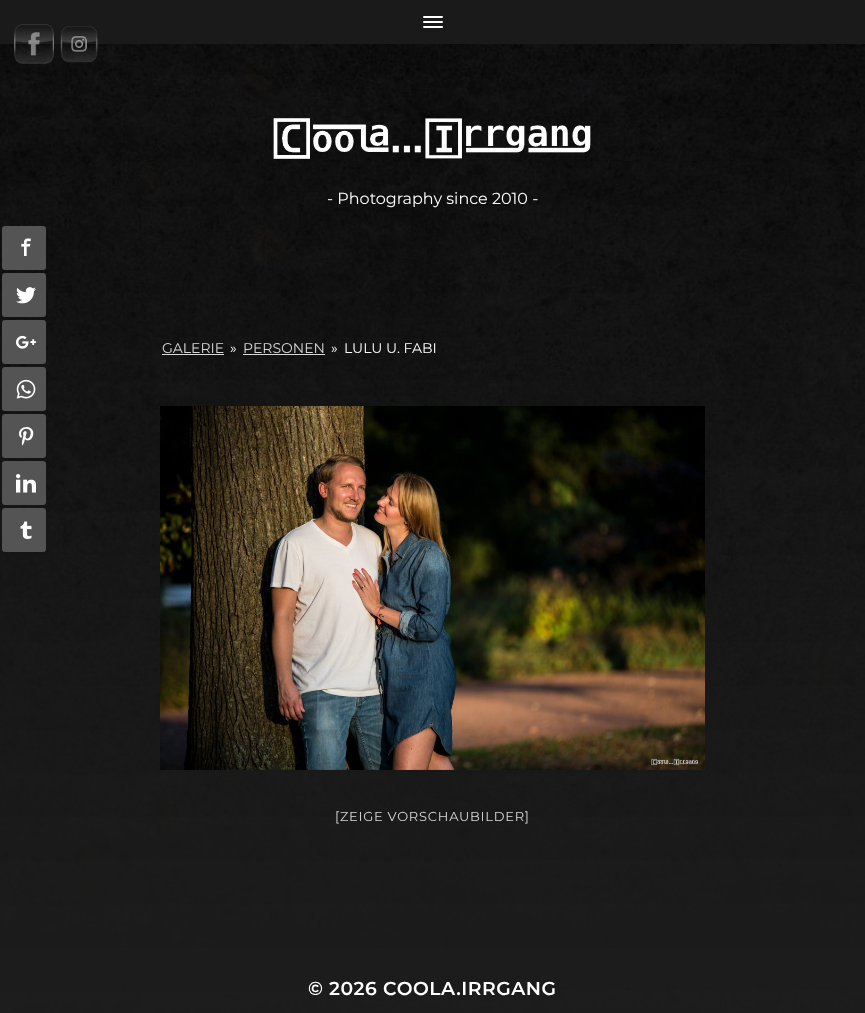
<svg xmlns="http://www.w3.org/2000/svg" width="865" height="1013">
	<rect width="100%" height="100%" fill="#1D1D1D" />
	<rect x="0" y="0" width="865" height="44" rx="3" fill="#1A1A1A" />
	<rect x="423" y="16" width="20" height="2" rx="1" fill="#FFFFFF" />
	<rect x="423" y="21" width="20" height="2" rx="1" fill="#FFFFFF" />
	<rect x="423" y="26" width="20" height="2" rx="1" fill="#FFFFFF" />
	<image x="0" y="44" width="865" height="969" href="assets/img1.png" />
	<image x="273" y="118" width="318" height="41" href="assets/img2.png" />
	<text x="327" y="204" font-family="Montserrat" font-size="16" font-weight="100" fill="#FFFFFF">- Photography since 2010 -</text>
	<image x="14" y="24" width="40" height="40" href="assets/img3.png" />
	<image x="60" y="26" width="38" height="37" href="assets/img4.png" />
	<rect x="2" y="226" width="44" height="44" rx="3" fill="#545454" />
	<image x="21" y="238" width="10" height="18" href="assets/img5.png" />
	<rect x="2" y="273" width="44" height="44" rx="3" fill="#545454" />
	<image x="16" y="287" width="20" height="17" href="assets/img6.png" />
	<rect x="2" y="320" width="44" height="44" rx="3" fill="#545454" />
	<image x="16" y="335" width="20" height="14" href="assets/img7.png" />
	<rect x="2" y="367" width="44" height="44" rx="3" fill="#545454" />
	<image x="16" y="379" width="20" height="20" href="assets/img8.png" />
	<rect x="2" y="414" width="44" height="44" rx="3" fill="#545454" />
	<image x="19" y="427" width="15" height="19" href="assets/img9.png" />
	<rect x="2" y="461" width="44" height="44" rx="3" fill="#545454" />
	<image x="16" y="474" width="20" height="19" href="assets/img10.png" />
	<rect x="2" y="508" width="44" height="44" rx="3" fill="#545454" />
	<image x="20" y="521" width="12" height="18" href="assets/img11.png" />
	<text x="162" y="353" font-family="Montserrat" font-size="14" font-weight="100" fill="#D8D8D8">GALERIE</text>
	<rect x="162" y="354" width="62" height="1" fill="#D8D8D8" />
	<text x="230" y="353" font-family="Montserrat" font-size="14" font-weight="100" fill="#FFFFFF">»</text>
	<text x="243" y="353" font-family="Montserrat" font-size="14" font-weight="100" fill="#D8D8D8">PERSONEN</text>
	<rect x="243" y="354" width="82" height="1" fill="#D8D8D8" />
	<g font-family="Montserrat" font-size="14" font-weight="100" fill="#FFFFFF">
		<text x="331" y="353">»</text>
		<text x="344" y="353">LULU U. FABI</text>
	</g>
	<image x="160" y="406" width="545" height="364" href="assets/img12.png" />
	<text x="335" y="821" font-family="Montserrat" font-size="13" font-weight="100" letter-spacing="0.75" fill="#D8D8D8">[ZEIGE VORSCHAUBILDER]</text>
	<text x="308" y="995" font-family="'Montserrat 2'" font-size="18.75" font-weight="100" letter-spacing="0.5" fill="#FFFFFF">© 2026 COOLA.IRRGANG</text>
</svg>
